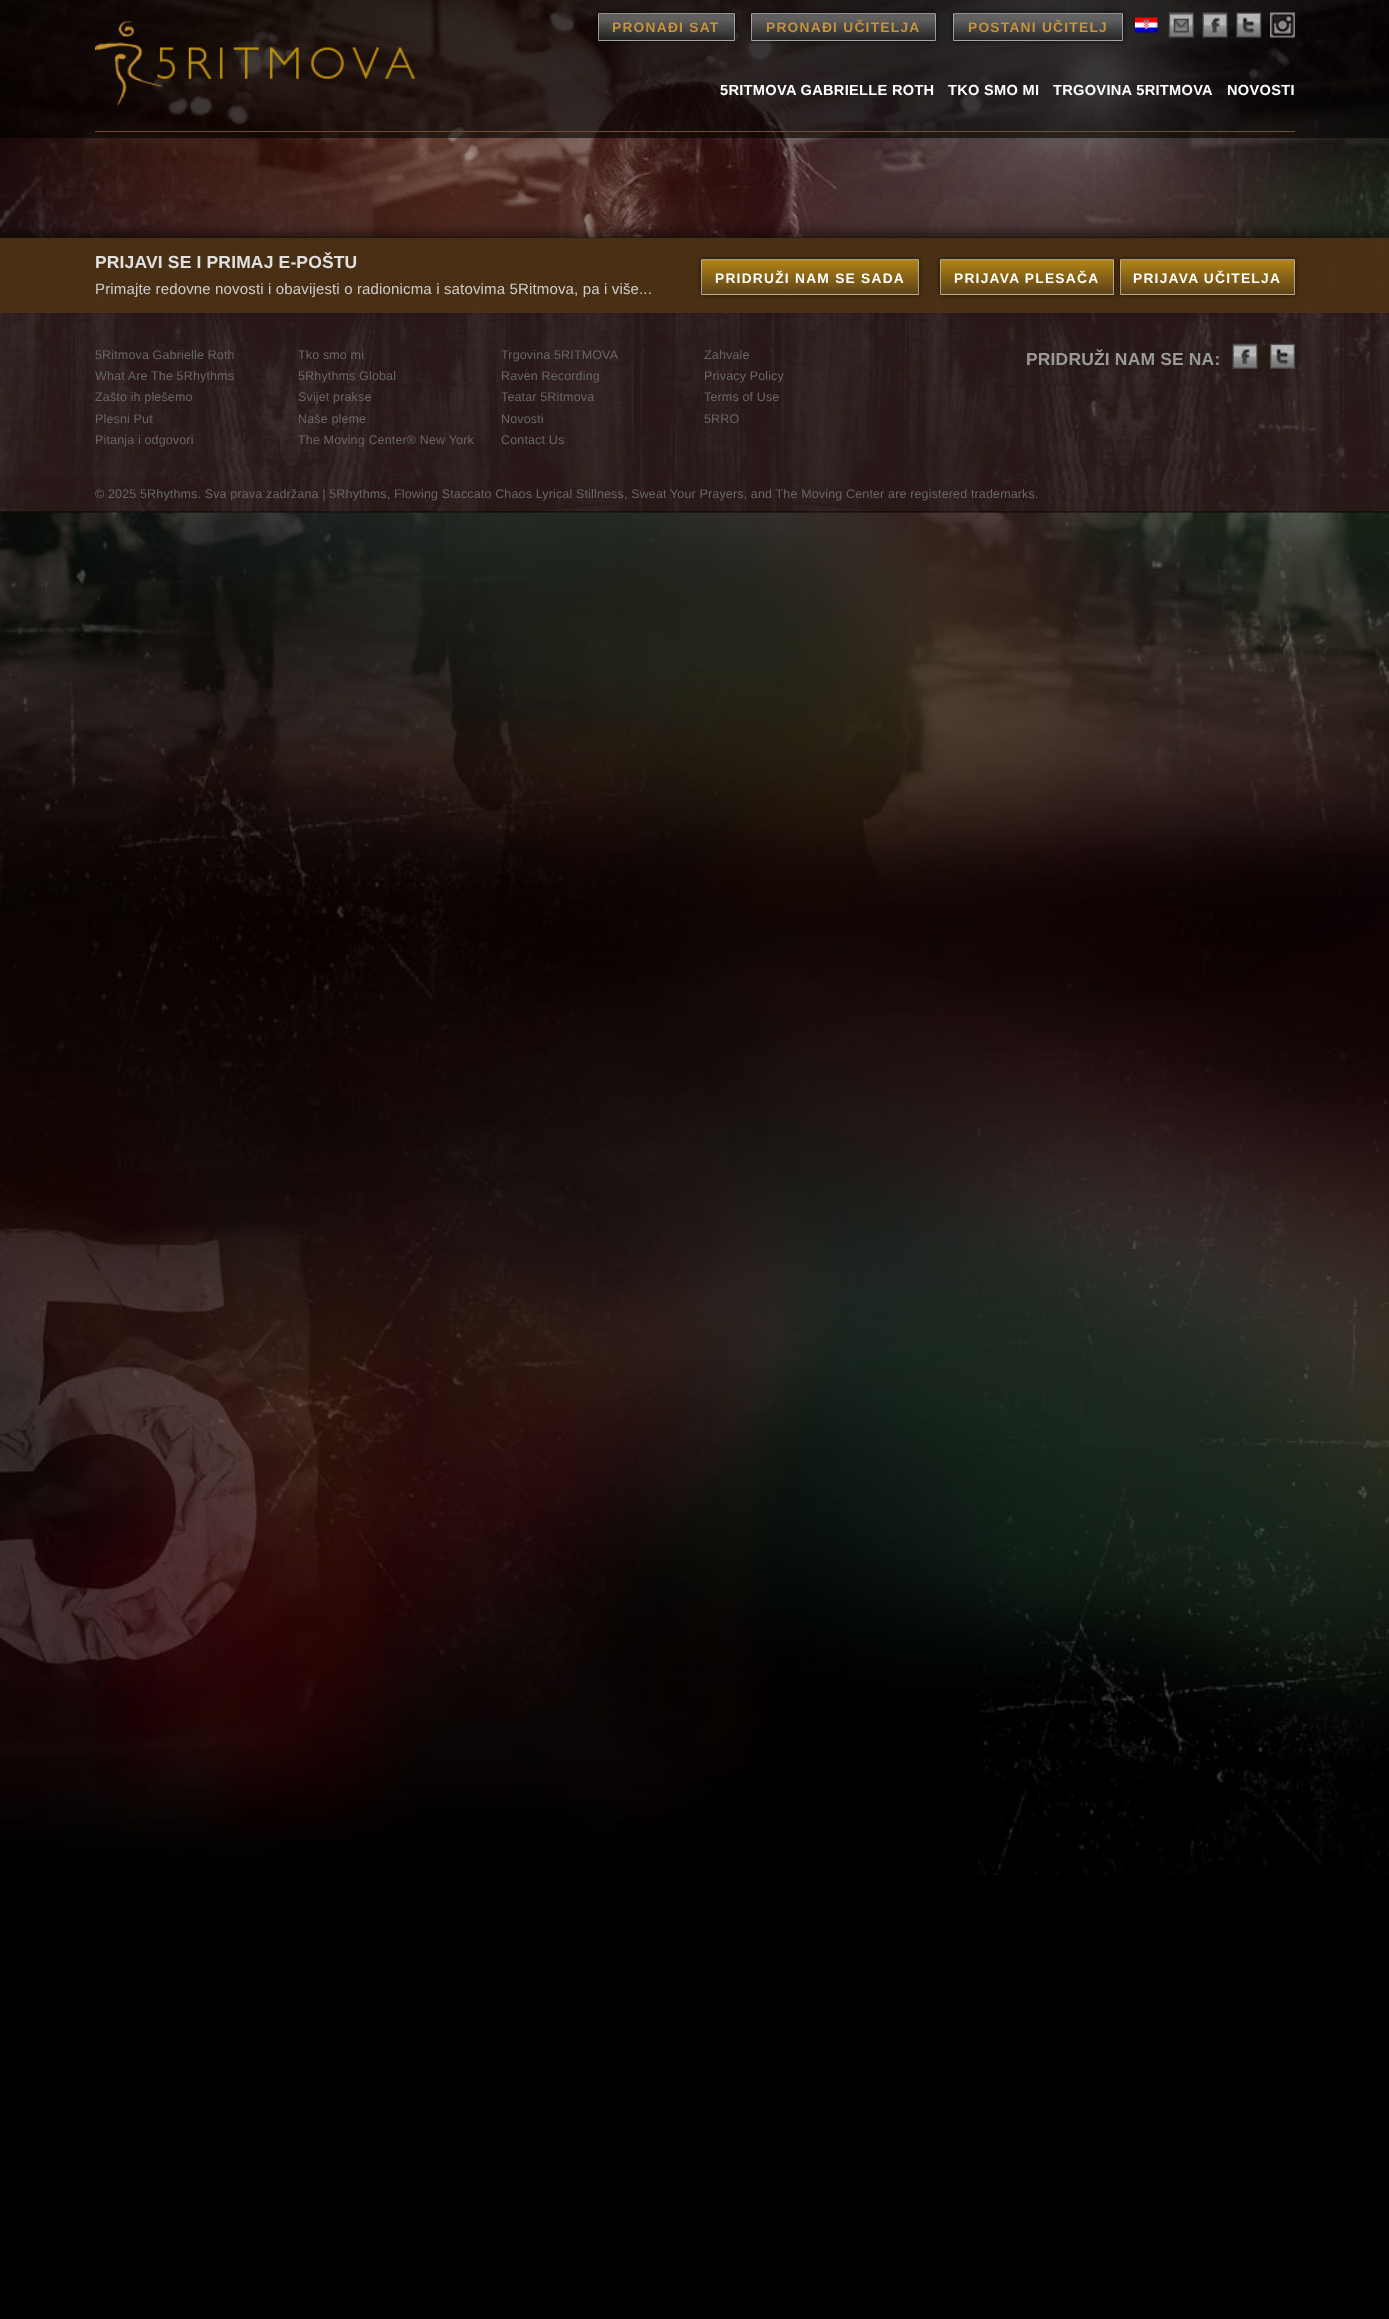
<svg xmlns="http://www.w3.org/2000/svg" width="1389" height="2319">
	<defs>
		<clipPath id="clip1"><path d="M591 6H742V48H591ZM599 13H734C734.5 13 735 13.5 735 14V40C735 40.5 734.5 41 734 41H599C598.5 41 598 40.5 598 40V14C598 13.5 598.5 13 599 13Z" clip-rule="evenodd" /></clipPath>
		<linearGradient id="g1" gradientUnits="userSpaceOnUse" x1="666" y1="-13" x2="666" y2="14"><stop offset="0.2" stop-color="#707070" stop-opacity="0.8" /><stop offset="1" stop-color="#252525" stop-opacity="0.8" /></linearGradient>
		<linearGradient id="g2" gradientUnits="userSpaceOnUse" x1="666" y1="14" x2="666" y2="40"><stop offset="0.2" stop-color="#707070" stop-opacity="0.8" /><stop offset="1" stop-color="#252525" stop-opacity="0.8" /></linearGradient>
		<linearGradient id="g3" gradientUnits="userSpaceOnUse" x1="666" y1="40" x2="666" y2="66"><stop offset="0.2" stop-color="#707070" stop-opacity="0.8" /><stop offset="1" stop-color="#252525" stop-opacity="0.8" /></linearGradient>
		<clipPath id="clip2"><path d="M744 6H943V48H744ZM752 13H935C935.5 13 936 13.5 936 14V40C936 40.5 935.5 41 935 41H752C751.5 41 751 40.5 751 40V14C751 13.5 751.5 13 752 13Z" clip-rule="evenodd" /></clipPath>
		<linearGradient id="g4" gradientUnits="userSpaceOnUse" x1="844" y1="-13" x2="844" y2="14"><stop offset="0.2" stop-color="#707070" stop-opacity="0.8" /><stop offset="1" stop-color="#252525" stop-opacity="0.8" /></linearGradient>
		<linearGradient id="g5" gradientUnits="userSpaceOnUse" x1="844" y1="14" x2="844" y2="40"><stop offset="0.2" stop-color="#707070" stop-opacity="0.8" /><stop offset="1" stop-color="#252525" stop-opacity="0.8" /></linearGradient>
		<linearGradient id="g6" gradientUnits="userSpaceOnUse" x1="844" y1="40" x2="844" y2="66"><stop offset="0.2" stop-color="#707070" stop-opacity="0.8" /><stop offset="1" stop-color="#252525" stop-opacity="0.8" /></linearGradient>
		<clipPath id="clip3"><path d="M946 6H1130V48H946ZM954 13H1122C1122.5 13 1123 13.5 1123 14V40C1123 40.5 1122.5 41 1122 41H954C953.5 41 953 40.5 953 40V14C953 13.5 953.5 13 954 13Z" clip-rule="evenodd" /></clipPath>
		<linearGradient id="g7" gradientUnits="userSpaceOnUse" x1="1038" y1="-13" x2="1038" y2="14"><stop offset="0.2" stop-color="#707070" stop-opacity="0.8" /><stop offset="1" stop-color="#252525" stop-opacity="0.8" /></linearGradient>
		<linearGradient id="g8" gradientUnits="userSpaceOnUse" x1="1038" y1="14" x2="1038" y2="40"><stop offset="0.2" stop-color="#707070" stop-opacity="0.8" /><stop offset="1" stop-color="#252525" stop-opacity="0.8" /></linearGradient>
		<linearGradient id="g9" gradientUnits="userSpaceOnUse" x1="1038" y1="40" x2="1038" y2="66"><stop offset="0.2" stop-color="#707070" stop-opacity="0.8" /><stop offset="1" stop-color="#252525" stop-opacity="0.8" /></linearGradient>
		<clipPath id="clip4"><path d="M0 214H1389V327H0ZM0 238H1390V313H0Z" clip-rule="evenodd" /></clipPath>
		<clipPath id="clip5"><path d="M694 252H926V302H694ZM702 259H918C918.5 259 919 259.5 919 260V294C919 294.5 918.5 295 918 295H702C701.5 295 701 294.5 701 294V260C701 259.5 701.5 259 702 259Z" clip-rule="evenodd" /></clipPath>
		<linearGradient id="g10" gradientUnits="userSpaceOnUse" x1="810" y1="226" x2="810" y2="260"><stop offset="0" stop-color="#CC9915" stop-opacity="0.8" /><stop offset="1" stop-color="#62461A" stop-opacity="0.8" /></linearGradient>
		<linearGradient id="g11" gradientUnits="userSpaceOnUse" x1="810" y1="260" x2="810" y2="294"><stop offset="0" stop-color="#CC9915" stop-opacity="0.8" /><stop offset="1" stop-color="#62461A" stop-opacity="0.8" /></linearGradient>
		<linearGradient id="g12" gradientUnits="userSpaceOnUse" x1="810" y1="294" x2="810" y2="328"><stop offset="0" stop-color="#CC9915" stop-opacity="0.8" /><stop offset="1" stop-color="#62461A" stop-opacity="0.8" /></linearGradient>
		<linearGradient id="g13" gradientUnits="userSpaceOnUse" x1="1208" y1="226" x2="1208" y2="260"><stop offset="0" stop-color="#CC9915" stop-opacity="0.8" /><stop offset="1" stop-color="#62461A" stop-opacity="0.8" /></linearGradient>
		<linearGradient id="g14" gradientUnits="userSpaceOnUse" x1="1208" y1="260" x2="1208" y2="294"><stop offset="0" stop-color="#B28415" /><stop offset="1" stop-color="#5D4219" /></linearGradient>
		<linearGradient id="g15" gradientUnits="userSpaceOnUse" x1="1208" y1="294" x2="1208" y2="328"><stop offset="0" stop-color="#CC9915" stop-opacity="0.8" /><stop offset="1" stop-color="#62461A" stop-opacity="0.8" /></linearGradient>
		<clipPath id="clip6"><path d="M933 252H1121V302H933ZM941 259H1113C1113.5 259 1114 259.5 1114 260V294C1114 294.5 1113.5 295 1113 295H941C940.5 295 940 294.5 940 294V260C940 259.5 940.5 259 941 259Z" clip-rule="evenodd" /></clipPath>
		<linearGradient id="g16" gradientUnits="userSpaceOnUse" x1="1027" y1="226" x2="1027" y2="260"><stop offset="0" stop-color="#CC9915" stop-opacity="0.8" /><stop offset="1" stop-color="#62461A" stop-opacity="0.8" /></linearGradient>
		<linearGradient id="g17" gradientUnits="userSpaceOnUse" x1="1027" y1="260" x2="1027" y2="294"><stop offset="0" stop-color="#CC9915" stop-opacity="0.8" /><stop offset="1" stop-color="#62461A" stop-opacity="0.8" /></linearGradient>
		<linearGradient id="g18" gradientUnits="userSpaceOnUse" x1="1027" y1="294" x2="1027" y2="328"><stop offset="0" stop-color="#CC9915" stop-opacity="0.8" /><stop offset="1" stop-color="#62461A" stop-opacity="0.8" /></linearGradient>
	</defs>
	<rect width="100%" height="100%" fill="#000000" />
	<image x="0" y="1000" width="1389" height="875" href="assets/img1.png" />
	<image x="0" y="0" width="1389" height="1000" href="assets/img2.png" />
	<rect x="0" y="0" width="1389" height="138" fill="#000000" fill-opacity="0.6" />
	<rect x="95" y="131" width="1200" height="1" fill="#6D5326" />
	<image x="95" y="21" width="321" height="85" href="assets/img3.png" />
	<g clip-path="url(#clip1)">
		<rect x="598" y="13" width="137" height="28" rx="1" fill="#000000" fill-opacity="0.7" filter="blur(2px)" />
	</g>
	<path d="M599 13H734C734.5 13 735 13.5 735 14H598C598 13.5 598.5 13 599 13Z" fill="url(#g1)" />
	<rect x="598" y="14" width="137" height="26" fill="url(#g2)" />
	<path d="M598 40H735C735 40.5 734.5 41 734 41H599C598.5 41 598 40.5 598 40Z" fill="url(#g3)" />
	<rect x="598.5" y="13.5" width="136" height="27" rx="0.5" fill="none" stroke="#CCCCCC" stroke-opacity="0.65" />
	<text x="612" y="32" font-family="Liberation Sans" font-size="13.75" font-weight="700" letter-spacing="1.25" fill="#C6933C">PRONAĐI SAT</text>
	<g clip-path="url(#clip2)">
		<rect x="751" y="13" width="185" height="28" rx="1" fill="#000000" fill-opacity="0.7" filter="blur(2px)" />
	</g>
	<path d="M752 13H935C935.5 13 936 13.5 936 14H751C751 13.5 751.5 13 752 13Z" fill="url(#g4)" />
	<rect x="751" y="14" width="185" height="26" fill="url(#g5)" />
	<path d="M751 40H936C936 40.5 935.5 41 935 41H752C751.5 41 751 40.5 751 40Z" fill="url(#g6)" />
	<rect x="751.5" y="13.5" width="184" height="27" rx="0.5" fill="none" stroke="#CCCCCC" stroke-opacity="0.65" />
	<text x="766" y="32" font-family="Liberation Sans" font-size="13.75" font-weight="700" letter-spacing="1.25" fill="#C6933C">PRONAĐI UČITELJA</text>
	<g clip-path="url(#clip3)">
		<rect x="953" y="13" width="170" height="28" rx="1" fill="#000000" fill-opacity="0.7" filter="blur(2px)" />
	</g>
	<path d="M954 13H1122C1122.5 13 1123 13.5 1123 14H953C953 13.5 953.5 13 954 13Z" fill="url(#g7)" />
	<rect x="953" y="14" width="170" height="26" fill="url(#g8)" />
	<path d="M953 40H1123C1123 40.5 1122.5 41 1122 41H954C953.5 41 953 40.5 953 40Z" fill="url(#g9)" />
	<rect x="953.5" y="13.5" width="169" height="27" rx="0.5" fill="none" stroke="#CCCCCC" stroke-opacity="0.65" />
	<text x="968" y="32" font-family="Liberation Sans" font-size="13.75" font-weight="700" letter-spacing="1.25" fill="#C6933C">POSTANI UČITELJ</text>
	<image x="1135" y="17" width="23" height="16" href="assets/img4.png" />
	<image x="1168" y="12" width="26" height="26" href="assets/img5.png" />
	<image x="1202" y="12" width="26" height="26" href="assets/img6.png" />
	<image x="1236" y="12" width="26" height="26" href="assets/img7.png" />
	<image x="1270" y="12" width="25" height="26" href="assets/img8.png" />
	<g font-family="Liberation Sans" font-size="14.6" font-weight="700" letter-spacing="0.3" fill="#FFFFFF">
		<text x="720" y="95">5RITMOVA GABRIELLE ROTH</text>
		<text x="948" y="95">TKO SMO MI</text>
		<text x="1053" y="95">TRGOVINA 5RITMOVA</text>
		<text x="1227" y="95">NOVOSTI</text>
	</g>
	<image x="0" y="237" width="1389" height="276" href="assets/img9.png" />
	<g clip-path="url(#clip4)">
		<rect x="0" y="233" width="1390" height="75" fill="#000000" fill-opacity="0.5" filter="blur(6px)" />
	</g>
	<rect x="0" y="238" width="1389" height="75" fill="#4B3214" fill-opacity="0.93" />
	<text x="95" y="268" font-family="Liberation Sans" font-size="17.5" font-weight="700" letter-spacing="0.15" fill="#E1E1E1">PRIJAVI SE I PRIMAJ E-POŠTU</text>
	<text x="95" y="294" font-family="Liberation Sans" font-size="15" letter-spacing="0.15" fill="#CCCCCC">Primajte redovne novosti i obavijesti o radionicma i satovima 5Ritmova, pa i više...</text>
	<g clip-path="url(#clip5)">
		<rect x="701" y="259" width="218" height="36" rx="1" fill="#000000" fill-opacity="0.7" filter="blur(2px)" />
	</g>
	<path d="M702 259H918C918.5 259 919 259.5 919 260H701C701 259.5 701.5 259 702 259Z" fill="url(#g10)" />
	<rect x="701" y="260" width="218" height="34" fill="url(#g11)" />
	<path d="M701 294H919C919 294.5 918.5 295 918 295H702C701.5 295 701 294.5 701 294Z" fill="url(#g12)" />
	<rect x="701.5" y="259.5" width="217" height="35" rx="0.5" fill="none" stroke="#CCCCCC" stroke-opacity="0.65" />
	<text x="715" y="283" font-family="Liberation Sans" font-size="13.75" font-weight="700" letter-spacing="1.25" fill="#FFFFFF">PRIDRUŽI NAM SE SADA</text>
	<rect x="1120" y="259" width="175" height="36" rx="1" fill="#000000" fill-opacity="0.7" filter="blur(2px)" />
	<path d="M1121 259H1294C1294.5 259 1295 259.5 1295 260H1120C1120 259.5 1120.5 259 1121 259Z" fill="url(#g13)" />
	<rect x="1120" y="260" width="175" height="34" fill="url(#g14)" />
	<path d="M1120 294H1295C1295 294.5 1294.5 295 1294 295H1121C1120.5 295 1120 294.5 1120 294Z" fill="url(#g15)" />
	<rect x="1120.5" y="259.5" width="174" height="35" rx="0.5" fill="none" stroke="#CCCCCC" stroke-opacity="0.65" />
	<g clip-path="url(#clip6)">
		<rect x="940" y="259" width="174" height="36" rx="1" fill="#000000" fill-opacity="0.7" filter="blur(2px)" />
	</g>
	<path d="M941 259H1113C1113.5 259 1114 259.5 1114 260H940C940 259.5 940.5 259 941 259Z" fill="url(#g16)" />
	<rect x="940" y="260" width="174" height="34" fill="url(#g17)" />
	<path d="M940 294H1114C1114 294.5 1113.5 295 1113 295H941C940.5 295 940 294.5 940 294Z" fill="url(#g18)" />
	<rect x="940.5" y="259.5" width="173" height="35" rx="0.5" fill="none" stroke="#CCCCCC" stroke-opacity="0.65" />
	<g font-family="Liberation Sans" font-size="13.75" font-weight="700" letter-spacing="1.25" fill="#FFFFFF">
		<text x="954" y="283">PRIJAVA PLESAČA</text>
		<text x="1133" y="283">PRIJAVA UČITELJA</text>
	</g>
	<g font-family="Liberation Sans" font-size="12.5" letter-spacing="0.15" fill="#666666">
		<text x="95" y="359">5Ritmova Gabrielle Roth</text>
		<text x="95" y="380">What Are The 5Rhythms</text>
		<text x="95" y="401">Zašto ih plešemo</text>
		<text x="95" y="423">Plesni Put</text>
		<text x="95" y="444">Pitanja i odgovori</text>
		<text x="298" y="359">Tko smo mi</text>
		<text x="298" y="380">5Rhythms Global</text>
		<text x="298" y="401">Svijet prakse</text>
		<text x="298" y="423">Naše pleme</text>
		<text x="298" y="444">The Moving Center® New York</text>
		<text x="501" y="359">Trgovina 5RITMOVA</text>
		<text x="501" y="380">Raven Recording</text>
		<text x="501" y="401">Teatar 5Ritmova</text>
		<text x="501" y="423">Novosti</text>
		<text x="501" y="444">Contact Us</text>
		<text x="704" y="359">Zahvale</text>
		<text x="704" y="380">Privacy Policy</text>
		<text x="704" y="401">Terms of Use</text>
		<text x="704" y="423">5RRO</text>
	</g>
	<text x="1026" y="365" font-family="Liberation Sans" font-size="17.5" font-weight="700" letter-spacing="0.15" fill="#999999">PRIDRUŽI NAM SE NA:</text>
	<image x="1232" y="343" width="26" height="26" href="assets/img10.png" />
	<image x="1270" y="343" width="25" height="26" href="assets/img11.png" />
	<text x="95" y="498" font-family="Liberation Sans" font-size="12.5" letter-spacing="0.15" fill="#666666">© 2025 5Rhythms. Sva prava zadržana | 5Rhythms, Flowing Staccato Chaos Lyrical Stillness, Sweat Your Prayers, and The Moving Center are registered trademarks.</text>
</svg>
